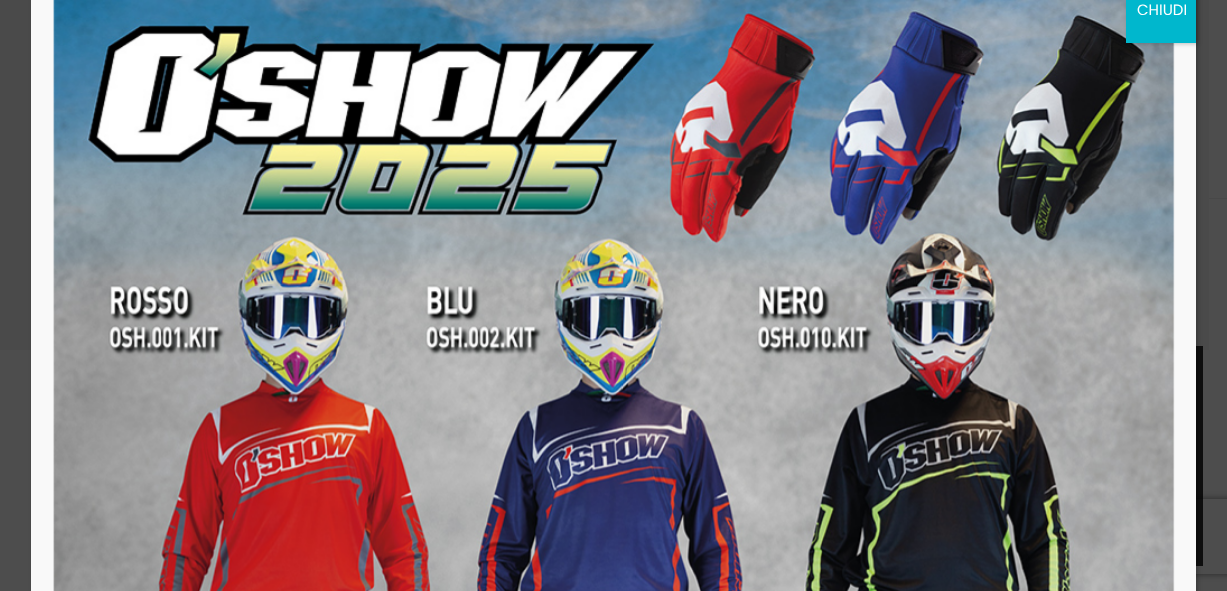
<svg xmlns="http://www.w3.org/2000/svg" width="1227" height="591">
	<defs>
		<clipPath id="clip1"><path d="M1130 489H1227V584H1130ZM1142.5 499H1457.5C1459 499 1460 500 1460 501.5V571.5C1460 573 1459 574 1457.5 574H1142.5C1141 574 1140 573 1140 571.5V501.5C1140 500 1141 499 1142.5 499Z" clip-rule="evenodd" /></clipPath>
	</defs>
	<rect width="100%" height="100%" fill="#4D4D4D" />
	<rect x="0" y="0" width="1209" height="350" fill="#4A4A4A" />
	<rect x="1209" y="198" width="18" height="1" fill="#484848" />
	<g clip-path="url(#clip1)">
		<rect x="1140" y="499" width="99" height="75" rx="2.5" fill="#262626" filter="blur(3px)" />
	</g>
	<rect x="1196" y="346" width="7" height="220" fill="#000000" fill-opacity="0.8" />
	<rect x="33" y="-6" width="1165" height="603" fill="#020202" fill-opacity="0.23" filter="blur(2px)" />
	<rect x="31" y="0" width="1165" height="591" fill="#F9F9F9" />
	<image x="53" y="0" width="1122" height="591" href="assets/img1.png" />
	<rect x="1128" y="-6" width="70" height="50" fill="#020202" fill-opacity="0.23" filter="blur(2px)" />
	<rect x="1126" y="0" width="70" height="43" fill="#00B7CD" />
	<text x="1137" y="15" font-family="Poppins" font-size="15" fill="#FFFFFF">CHIUDI</text>
</svg>
